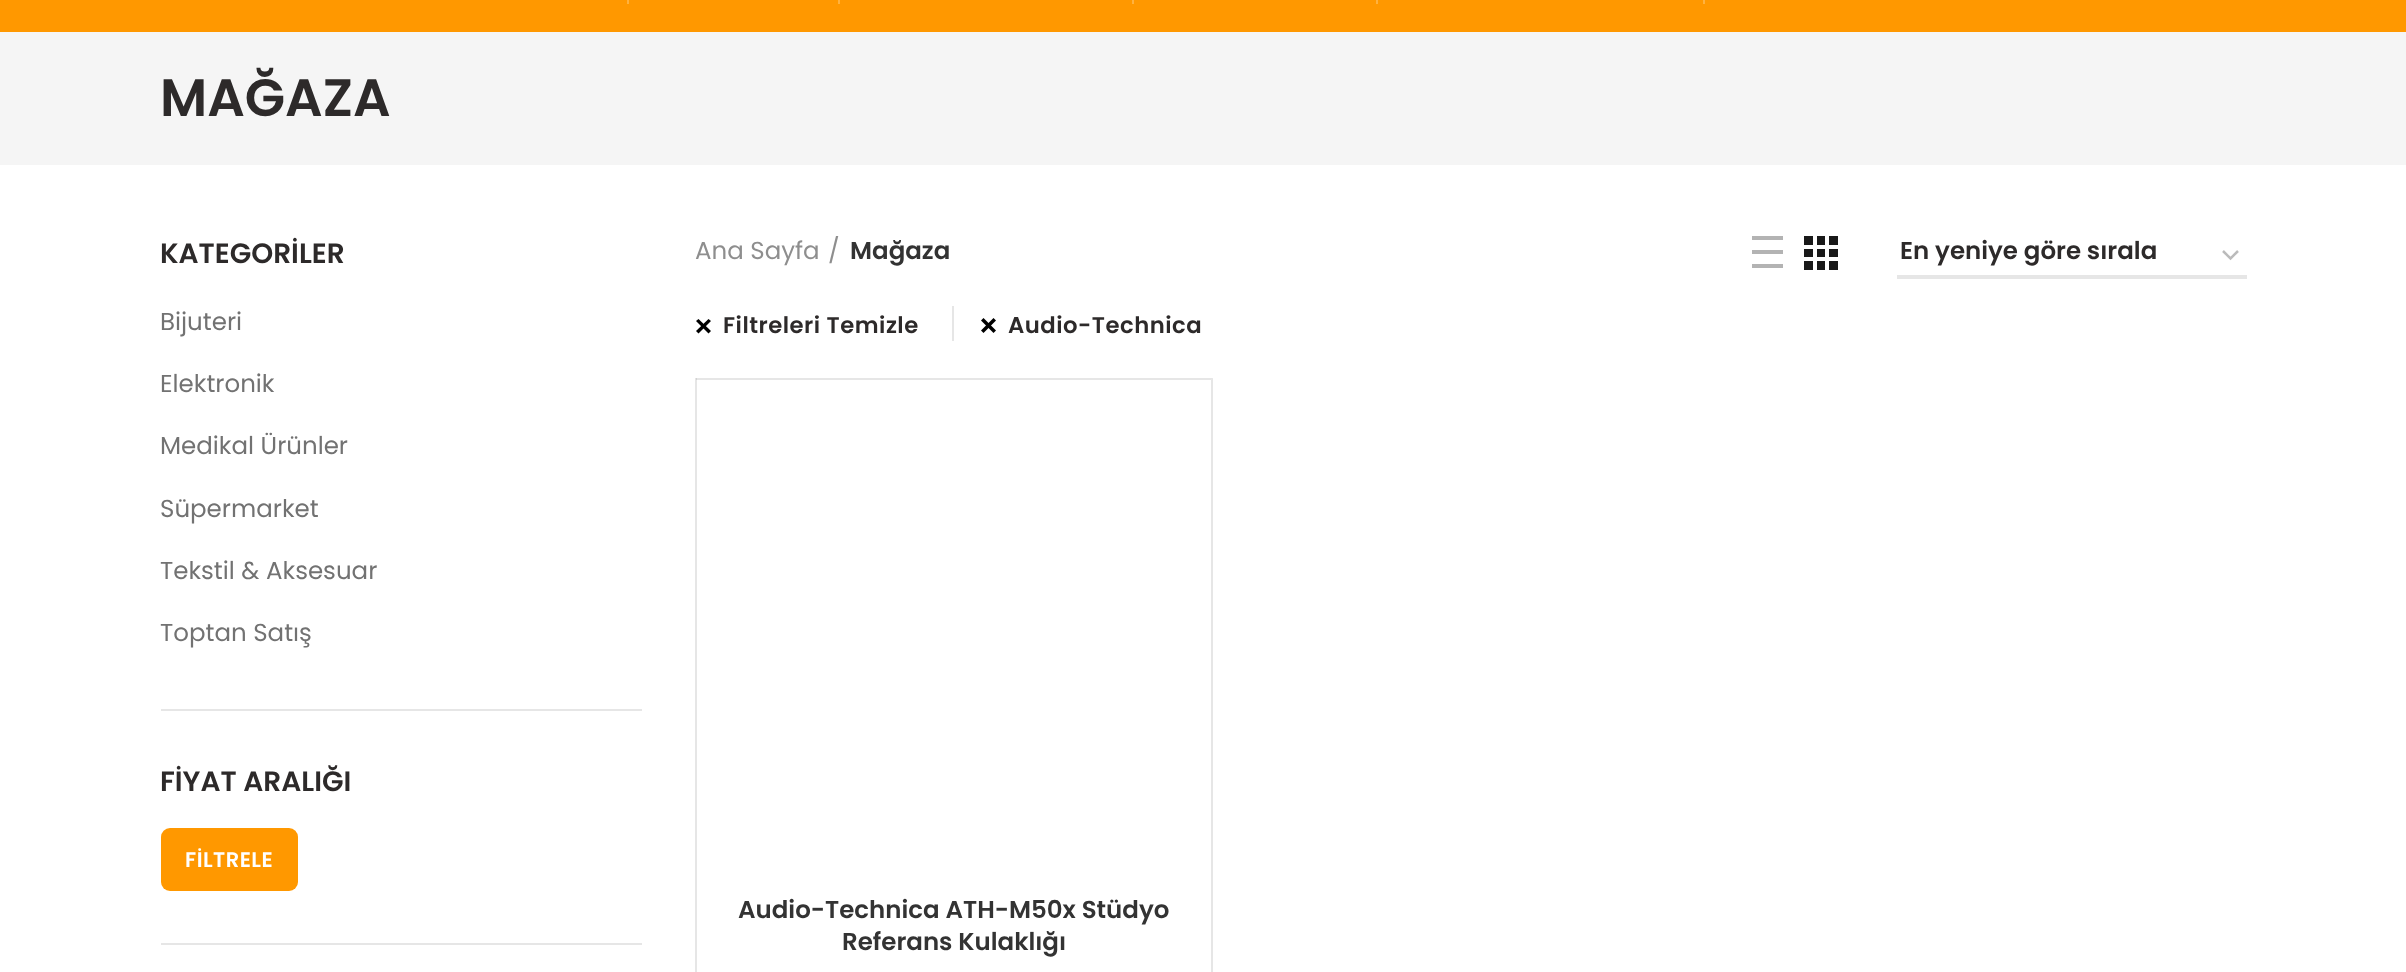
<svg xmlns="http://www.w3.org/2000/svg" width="2406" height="972">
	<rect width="100%" height="100%" fill="#FFFFFF" />
	<rect x="0" y="0" width="2406" height="32" fill="#FF9800" />
	<rect x="627" y="0" width="2" height="4" fill="#FFB240" />
	<rect x="838" y="0" width="2" height="4" fill="#FFB240" />
	<rect x="1132" y="0" width="2" height="4" fill="#FFB240" />
	<rect x="1376" y="0" width="2" height="4" fill="#FFB240" />
	<rect x="1703" y="0" width="2" height="4" fill="#FFB240" />
	<rect x="0" y="32" width="2406" height="133" fill="#F5F5F5" />
	<text x="160" y="116" font-family="Poppins" font-size="52.5" font-weight="600" fill="#2D2A2A">MAĞAZA</text>
	<rect x="161" y="709" width="481" height="2" fill="#E6E6E6" />
	<text x="160" y="263" font-family="Poppins" font-size="28" font-weight="600" fill="#2D2A2A">KATEGORİLER</text>
	<g font-family="Poppins" font-size="24.5" fill="#727272">
		<text x="160" y="330">Bijuteri</text>
		<text x="160" y="392">Elektronik</text>
		<text x="160" y="454">Medikal Ürünler</text>
		<text x="160" y="517">Süpermarket</text>
		<text x="160" y="579">Tekstil &amp; Aksesuar</text>
		<text x="160" y="641">Toptan Satış</text>
	</g>
	<rect x="161" y="943" width="481" height="2" fill="#E6E6E6" />
	<text x="160" y="791" font-family="Poppins" font-size="28" font-weight="600" fill="#2D2A2A">FİYAT ARALIĞI</text>
	<rect x="161" y="828" width="137" height="63" rx="9" fill="#FF9800" />
	<text x="185" y="867" font-family="Poppins" font-size="21" font-weight="600" letter-spacing="0.5" fill="#FFFFFF">FİLTRELE</text>
	<g font-family="Poppins" font-size="24.5" fill="#8E8E8E">
		<text x="695" y="259">Ana Sayfa</text>
		<text x="828" y="259">/</text>
	</g>
	<text x="850" y="259" font-family="Poppins" font-size="24.5" font-weight="600" fill="#333333">Mağaza</text>
	<rect x="1752" y="236" width="31" height="4" fill="#B3B3B3" />
	<rect x="1752" y="264" width="31" height="4" fill="#B3B3B3" />
	<rect x="1752" y="250" width="31" height="4" fill="#B3B3B3" />
	<image x="1804" y="236" width="34" height="34" href="assets/img1.png" />
	<path d="M2223 251L2230.5 258.5L2238 251" fill="none" stroke="#BBBBBB" stroke-width="2.5" />
	<rect x="1897" y="275" width="350" height="4" fill="#E6E6E6" />
	<text x="1900" y="259" font-family="Poppins" font-size="24.5" font-weight="600" fill="#2D2A2A">En yeniye göre sırala</text>
	<rect x="952" y="306" width="2" height="35" fill="#E6E6E6" />
	<path d="M698.5 319L711 331L708.5 333.5L696 321Z" fill="#000000" />
	<text x="723" y="333" font-family="Poppins" font-size="22.75" font-weight="600" letter-spacing="0.5" fill="#2D2A2A">Filtreleri Temizle</text>
	<path d="M696 331L708.5 319L711 321L698.5 333.5Z" fill="#000000" />
	<path d="M983.5 318L996 330.5L993.5 333L981 320.5Z" fill="#000000" />
	<text x="1008" y="333" font-family="Poppins" font-size="22.75" font-weight="600" letter-spacing="0.5" fill="#2D2A2A">Audio-Technica</text>
	<path d="M981 330.5L993.5 318L996 320.5L983.5 333Z" fill="#000000" />
	<rect x="695" y="378" width="2" height="594" fill="#E6E6E6" />
	<path d="M696 378H1213L1211 380H696Z" fill="#818181" fill-opacity="0.2" />
	<path d="M1213 378V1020L1211 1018V380Z" fill="#818181" fill-opacity="0.2" />
	<g font-family="Poppins" font-size="24.5" font-weight="600" fill="#333333">
		<text x="738" y="918">Audio-Technica ATH-M50x Stüdyo</text>
		<text x="842" y="950">Referans Kulaklığı</text>
	</g>
</svg>
